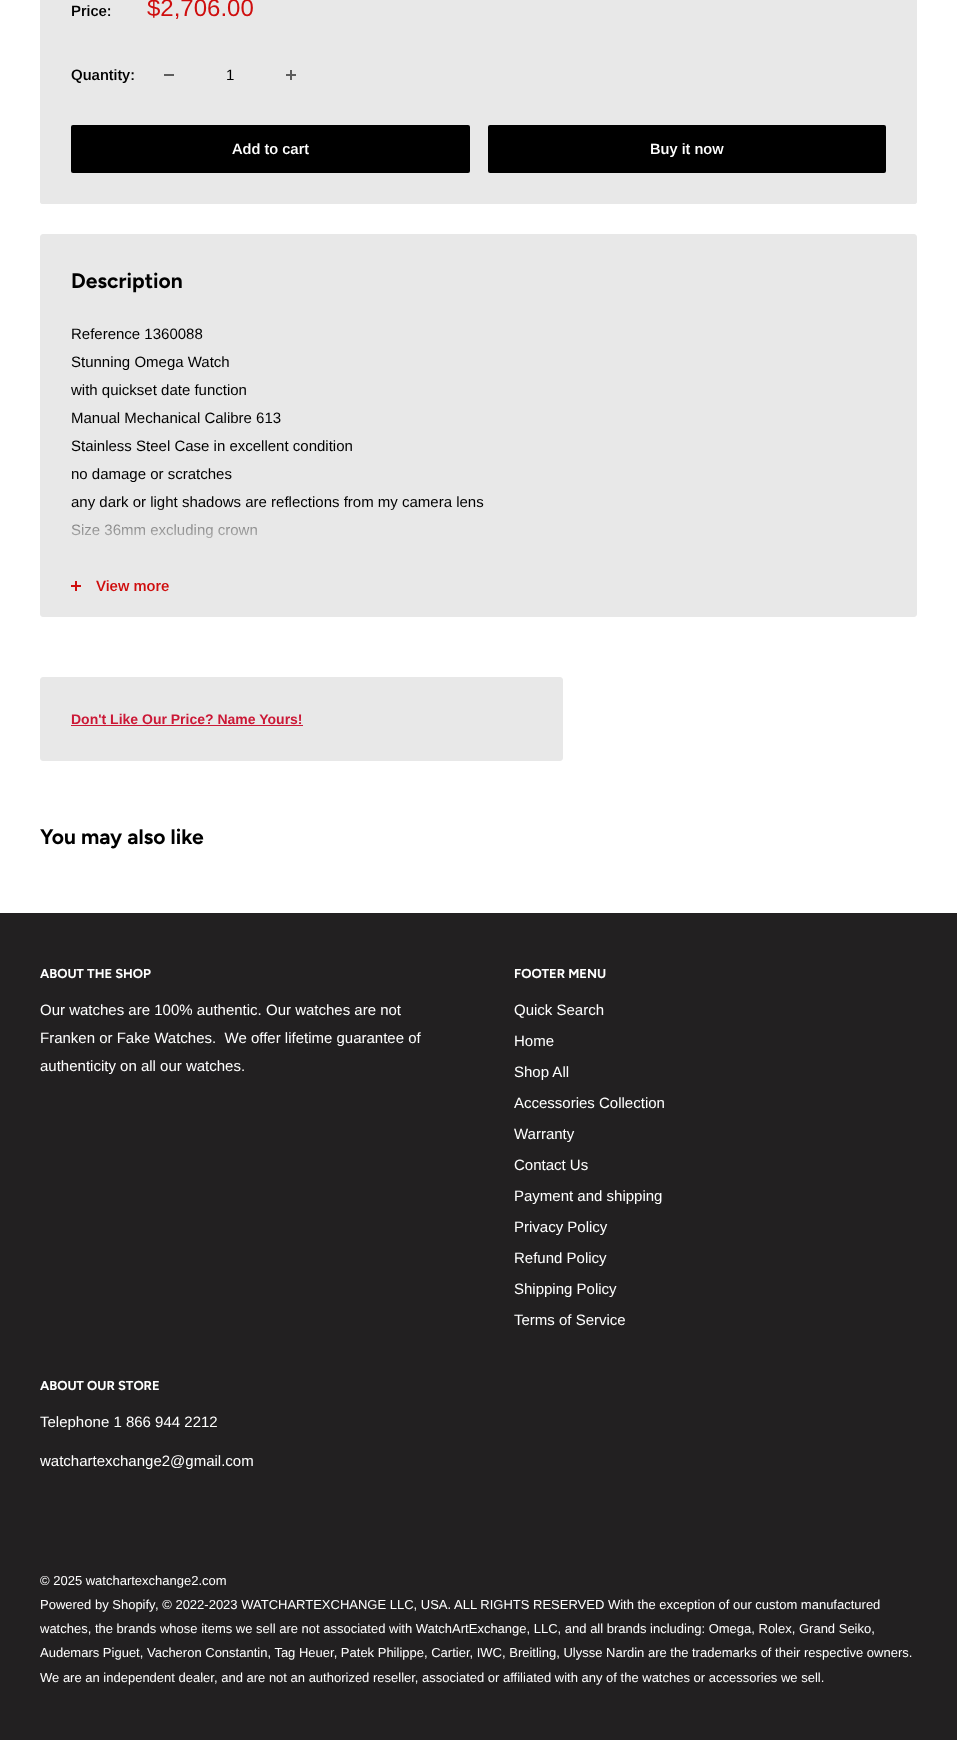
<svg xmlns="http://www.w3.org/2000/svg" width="957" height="1740">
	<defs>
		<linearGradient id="g1" gradientUnits="userSpaceOnUse" x1="479" y1="506" x2="479" y2="556"><stop offset="0" stop-color="#E8E8E8" stop-opacity="0" /><stop offset="0.15" stop-color="#E8E8E8" stop-opacity="0.4" /><stop offset="1" stop-color="#E8E8E8" /></linearGradient>
	</defs>
	<rect width="100%" height="100%" fill="#FFFFFF" />
	<rect x="40" y="-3" width="877" height="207" rx="3" fill="#E8E8E8" />
	<path d="M43-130H914C916-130 917-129 917-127V201C917 203 916 204 914 204H43C41 204 40 203 40 201V-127C40-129 41-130 43-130ZM43-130H914C915-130 916-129 916-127V201C916 202 915 203 914 203H43C42 203 41 202 41 201V-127C41-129 42-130 43-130Z" fill="#E8E8E8" fill-rule="evenodd" />
	<text x="71" y="16" font-family="Arimo" font-size="15" font-weight="600" fill="#000000">Price:</text>
	<text x="147" y="16" font-family="Arimo" font-size="24" fill="#CF0E0E">$2,706.00</text>
	<text x="71" y="80" font-family="Arimo" font-size="15" font-weight="600" fill="#000000">Quantity:</text>
	<rect x="164" y="74" width="10" height="2" fill="#5D5D5D" />
	<text x="226" y="80" font-family="Arimo" font-size="15" fill="#000000">1</text>
	<image x="286" y="70" width="10" height="10" href="assets/img1.png" />
	<rect x="71" y="125" width="399" height="48" rx="2" fill="#000000" />
	<text x="232" y="154" font-family="Arimo" font-size="15" font-weight="600" fill="#FFFFFF">Add to cart</text>
	<rect x="488" y="125" width="398" height="48" rx="2" fill="#000000" />
	<text x="650" y="154" font-family="Arimo" font-size="15" font-weight="600" fill="#FFFFFF">Buy it now</text>
	<rect x="40.5" y="234.5" width="876" height="382" rx="2.5" fill="#E8E8E8" stroke="#E8E8E8" />
	<text x="71" y="288" font-family="Figtree" font-size="21" font-weight="700" fill="#000000">Description</text>
	<g font-family="Arimo" font-size="15" fill="#000000">
		<text x="71" y="339">Reference 1360088</text>
		<text x="71" y="367">Stunning Omega Watch</text>
		<text x="71" y="395">with quickset date function</text>
		<text x="71" y="423">Manual Mechanical Calibre 613</text>
		<text x="71" y="451">Stainless Steel Case in excellent condition</text>
		<text x="71" y="479">no damage or scratches</text>
		<text x="71" y="507">any dark or light shadows are reflections from my camera lens</text>
		<text x="71" y="535">Size 36mm excluding crown</text>
	</g>
	<rect x="71" y="506" width="411" height="33" fill="url(#g1)" />
	<rect x="75" y="581" width="2" height="10" fill="#CF0E0E" />
	<rect x="71" y="585" width="10" height="2" fill="#CF0E0E" />
	<text x="96" y="591" font-family="Arimo" font-size="15" font-weight="600" fill="#CF0E0E">View more</text>
	<rect x="40.5" y="677.5" width="522" height="83" rx="2.5" fill="#E8E8E8" stroke="#E8E8E8" />
	<text x="71" y="724" font-family="Arimo" font-size="14" font-weight="700" fill="#CB1836">Don't Like Our Price? Name Yours!</text>
	<rect x="71" y="725" width="232" height="1" fill="#CB1836" />
	<text x="40" y="844" font-family="Figtree" font-size="21" font-weight="700" fill="#000000">You may also like</text>
	<rect x="0" y="913" width="957" height="827" fill="#222021" />
	<text x="40" y="978" font-family="Figtree" font-size="13" font-weight="700" fill="#FFFFFF">ABOUT THE SHOP</text>
	<g font-family="Arimo" font-size="15" fill="#FFFFFF">
		<text x="40" y="1015">Our watches are 100% authentic. Our watches are not</text>
		<text x="40" y="1043" xml:space="preserve">Franken or Fake Watches.  We offer lifetime guarantee of</text>
		<text x="40" y="1071">authenticity on all our watches.</text>
	</g>
	<text x="514" y="978" font-family="Figtree" font-size="13" font-weight="700" fill="#FFFFFF">FOOTER MENU</text>
	<g font-family="Arimo" font-size="15" fill="#FFFFFF">
		<text x="514" y="1015">Quick Search</text>
		<text x="514" y="1046">Home</text>
		<text x="514" y="1077">Shop All</text>
		<text x="514" y="1108">Accessories Collection</text>
		<text x="514" y="1139">Warranty</text>
		<text x="514" y="1170">Contact Us</text>
		<text x="514" y="1201">Payment and shipping</text>
		<text x="514" y="1232">Privacy Policy</text>
		<text x="514" y="1263">Refund Policy</text>
		<text x="514" y="1294">Shipping Policy</text>
		<text x="514" y="1325">Terms of Service</text>
	</g>
	<text x="40" y="1390" font-family="Figtree" font-size="13" font-weight="700" fill="#FFFFFF">ABOUT OUR STORE</text>
	<g font-family="Arimo" font-size="15" fill="#FFFFFF">
		<text x="40" y="1427">Telephone 1 866 944 2212</text>
		<text x="40" y="1466">watchartexchange2@gmail.com</text>
	</g>
	<g font-family="Arimo" font-size="13" fill="#FFFFFF">
		<text x="40" y="1585">© 2025 watchartexchange2.com</text>
		<text x="40" y="1609">Powered by Shopify</text>
		<text x="155" y="1609">, © 2022-2023 WATCHARTEXCHANGE LLC, USA. ALL RIGHTS RESERVED With the exception of our custom manufactured</text>
		<text x="40" y="1633">watches, the brands whose items we sell are not associated with WatchArtExchange, LLC, and all brands including: Omega, Rolex, Grand Seiko,</text>
		<text x="40" y="1657">Audemars Piguet, Vacheron Constantin, Tag Heuer, Patek Philippe, Cartier, IWC, Breitling, Ulysse Nardin are the trademarks of their respective owners.</text>
		<text x="40" y="1682">We are an independent dealer, and are not an authorized reseller, associated or affiliated with any of the watches or accessories we sell.</text>
	</g>
</svg>
